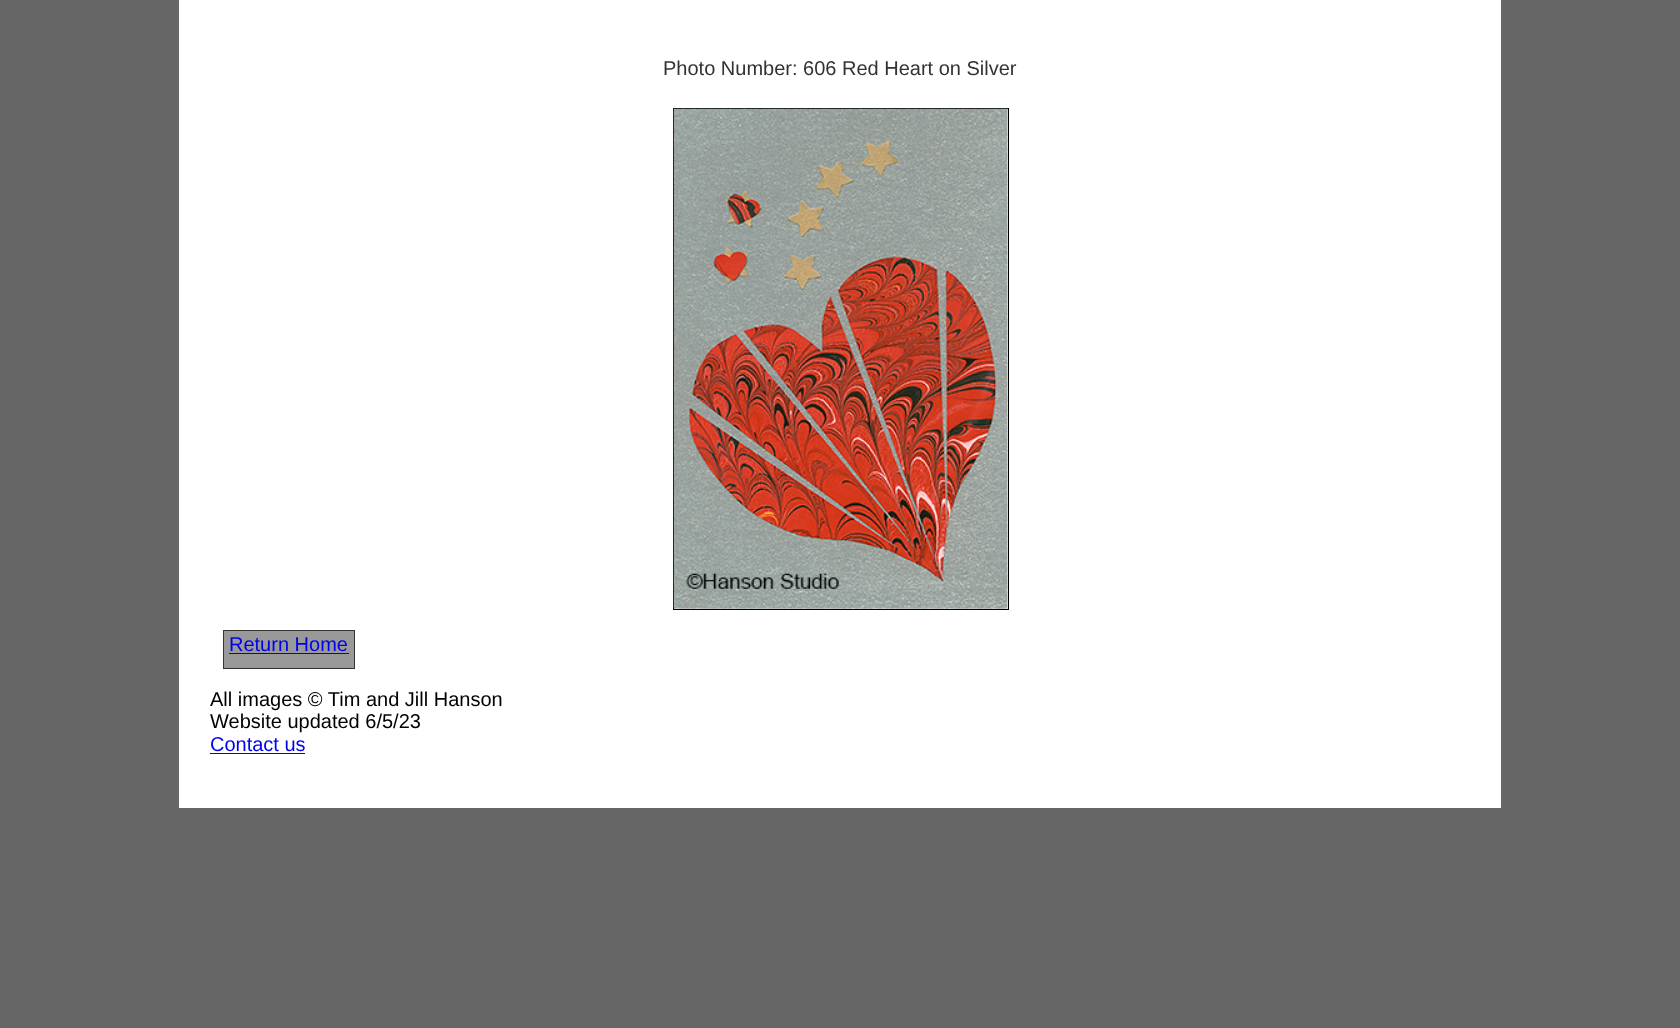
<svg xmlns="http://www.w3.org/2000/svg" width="1680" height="1028">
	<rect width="100%" height="100%" fill="#666666" />
	<rect x="179" y="0" width="1322" height="808" fill="#FFFFFF" />
	<text x="663" y="75" font-family="Liberation Sans" font-size="20" fill="#333333">Photo Number: 606 Red Heart on Silver</text>
	<rect x="673.5" y="108.5" width="335" height="501" fill="none" stroke="#000000" />
	<image x="673" y="108" width="335" height="501" href="assets/img1.png" />
	<rect x="223.5" y="630.5" width="131" height="38" fill="#999999" stroke="#333333" />
	<text x="229" y="651" font-family="Liberation Sans" font-size="20" fill="#0000EE">Return Home</text>
	<rect x="229" y="653" width="120" height="1" fill="#0000EE" />
	<g font-family="Liberation Sans" font-size="20" fill="#000000">
		<text x="210" y="706">All images © Tim and Jill Hanson</text>
		<text x="210" y="728">Website updated 6/5/23</text>
	</g>
	<text x="210" y="751" font-family="Liberation Sans" font-size="20" fill="#0000EE">Contact us</text>
	<rect x="210" y="753" width="95" height="1" fill="#0000EE" />
</svg>
